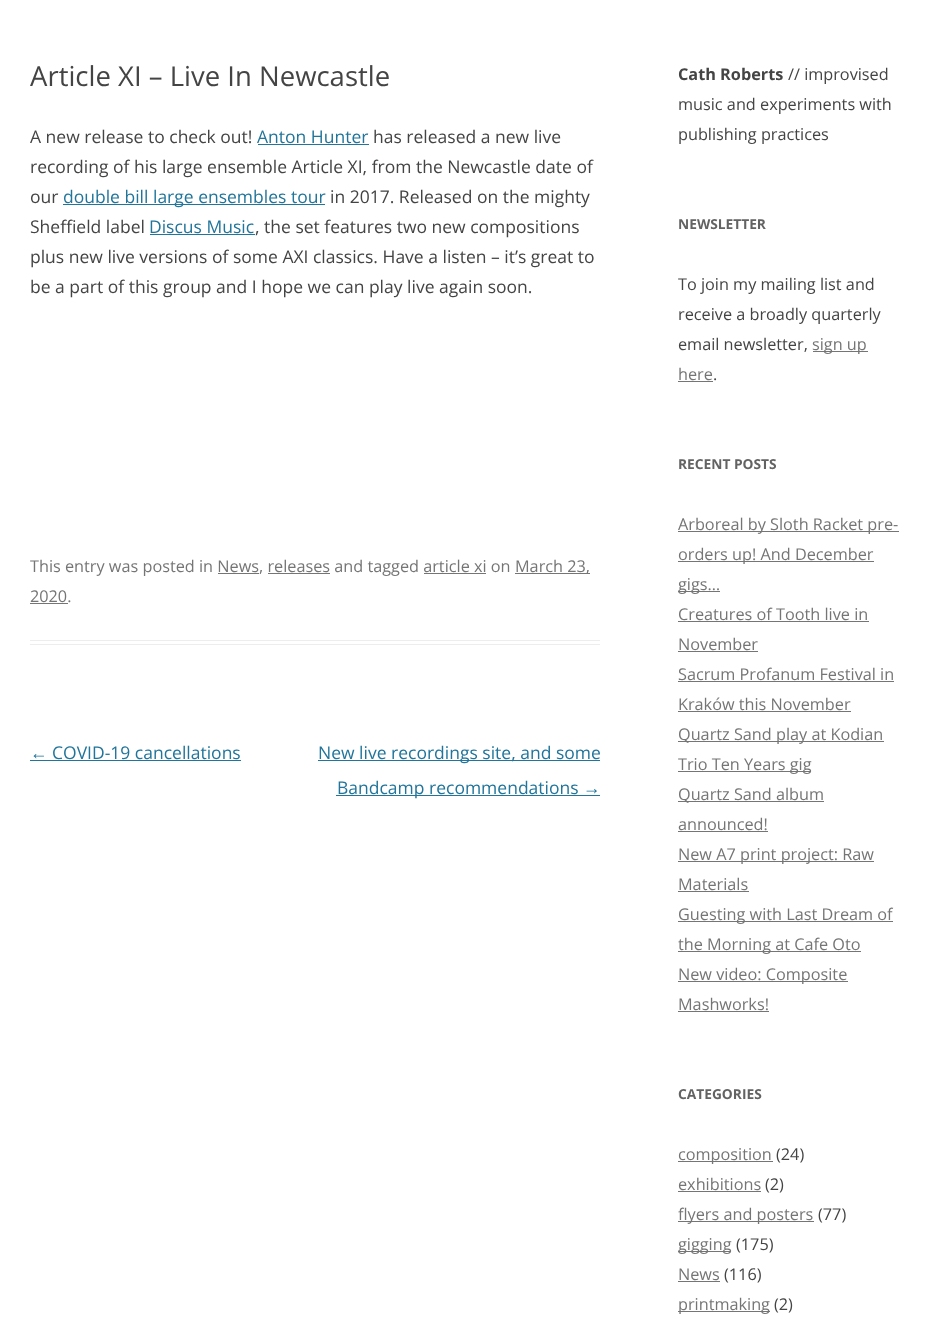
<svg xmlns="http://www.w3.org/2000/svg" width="936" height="1332">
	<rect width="100%" height="100%" fill="#FFFFFF" />
	<rect x="30" y="640" width="570" height="1" fill="#EDEDED" />
	<rect x="30" y="644" width="570" height="1" fill="#EDEDED" />
	<text x="30" y="86" font-family="Open Sans" font-size="27.5" fill="#444444">Article XI – Live In Newcastle</text>
	<text x="30" y="143" font-family="Open Sans" font-size="17.5" fill="#444444">A new release to check out!</text>
	<text x="257" y="143" font-family="Open Sans" font-size="17.5" fill="#21759B">Anton Hunter</text>
	<rect x="258" y="144" width="111" height="1" fill="#21759B" />
	<g font-family="Open Sans" font-size="17.5" fill="#444444">
		<text x="373" y="143">has released a new live</text>
		<text x="30" y="173">recording of his large ensemble Article XI, from the Newcastle date of</text>
		<text x="30" y="203">our</text>
	</g>
	<rect x="63" y="204" width="262" height="1" fill="#21759B" />
	<text x="63" y="203" font-family="Open Sans" font-size="17.5" fill="#21759B">double bill large ensembles tour</text>
	<g font-family="Open Sans" font-size="17.5" fill="#444444">
		<text x="330" y="203">in 2017. Released on the mighty</text>
		<text x="30" y="233">Sheffield label</text>
	</g>
	<text x="149" y="233" font-family="Open Sans" font-size="17.5" fill="#21759B">Discus Music</text>
	<rect x="150" y="234" width="105" height="1" fill="#21759B" />
	<g font-family="Open Sans" font-size="17.5" fill="#444444">
		<text x="255" y="233">, the set features two new compositions</text>
		<text x="30" y="263">plus new live versions of some AXI classics. Have a listen – it’s great to</text>
		<text x="30" y="293">be a part of this group and I hope we can play live again soon.</text>
	</g>
	<text x="30" y="572" font-family="Open Sans" font-size="16.25" fill="#757575">This entry was posted in News, releases and tagged article xi on</text>
	<rect x="515" y="573" width="75" height="1" fill="#757575" />
	<text x="515" y="572" font-family="Open Sans" font-size="16.25" fill="#757575">March 23,</text>
	<rect x="218" y="573" width="41" height="1" fill="#757575" />
	<rect x="268" y="573" width="62" height="1" fill="#757575" />
	<rect x="424" y="573" width="62" height="1" fill="#757575" />
	<text x="30" y="602" font-family="Open Sans" font-size="16.25" fill="#757575">2020.</text>
	<rect x="30" y="603" width="38" height="1" fill="#757575" />
	<text x="30" y="759" font-family="Liberation Sans" font-size="17.5" fill="#21759B">←</text>
	<rect x="30" y="760" width="211" height="1" fill="#21759B" />
	<text x="52" y="759" font-family="Open Sans" font-size="17.5" fill="#21759B">COVID-19 cancellations</text>
	<rect x="318" y="760" width="282" height="1" fill="#21759B" />
	<text x="318" y="759" font-family="Open Sans" font-size="17.5" fill="#21759B">New live recordings site, and some</text>
	<rect x="336" y="795" width="264" height="1" fill="#21759B" />
	<text x="337" y="794" font-family="Open Sans" font-size="17.5" fill="#21759B">Bandcamp recommendations</text>
	<text x="583" y="794" font-family="Liberation Sans" font-size="17.5" fill="#21759B">→</text>
	<text x="678" y="80" font-family="Open Sans" font-size="16.25" font-weight="700" fill="#444444">Cath Roberts</text>
	<g font-family="Open Sans" font-size="16.25" fill="#444444">
		<text x="788" y="80">// improvised</text>
		<text x="678" y="110">music and experiments with</text>
		<text x="678" y="140">publishing practices</text>
	</g>
	<text x="678" y="229" font-family="Open Sans" font-size="13.75" font-weight="700" fill="#636363">NEWSLETTER</text>
	<g font-family="Open Sans" font-size="16.25" fill="#444444">
		<text x="678" y="290">To join my mailing list and</text>
		<text x="678" y="320">receive a broadly quarterly</text>
		<text x="678" y="350">email newsletter,</text>
	</g>
	<rect x="813" y="351" width="55" height="1" fill="#757575" />
	<g font-family="Open Sans" font-size="16.25" fill="#757575">
		<text x="812" y="350">sign up</text>
		<text x="678" y="380">here</text>
	</g>
	<rect x="678" y="381" width="35" height="1" fill="#757575" />
	<text x="713" y="380" font-family="Open Sans" font-size="16.25" fill="#444444">.</text>
	<text x="678" y="469" font-family="Open Sans" font-size="13.75" font-weight="700" fill="#636363">RECENT POSTS</text>
	<rect x="678" y="531" width="221" height="1" fill="#757575" />
	<text x="678" y="530" font-family="Open Sans" font-size="16.25" fill="#757575">Arboreal by Sloth Racket pre-</text>
	<rect x="678" y="561" width="196" height="1" fill="#757575" />
	<text x="678" y="560" font-family="Open Sans" font-size="16.25" fill="#757575">orders up! And December</text>
	<rect x="678" y="591" width="42" height="1" fill="#757575" />
	<g font-family="Open Sans" font-size="16.25" fill="#757575">
		<text x="678" y="590">gigs…</text>
		<text x="678" y="620">Creatures of Tooth live in</text>
	</g>
	<rect x="678" y="621" width="191" height="1" fill="#757575" />
	<text x="678" y="650" font-family="Open Sans" font-size="16.25" fill="#757575">November</text>
	<rect x="678" y="651" width="80" height="1" fill="#757575" />
	<text x="678" y="680" font-family="Open Sans" font-size="16.25" fill="#757575">Sacrum Profanum Festival in</text>
	<rect x="678" y="681" width="216" height="1" fill="#757575" />
	<text x="678" y="710" font-family="Open Sans" font-size="16.25" fill="#757575">Kraków this November</text>
	<rect x="678" y="711" width="173" height="1" fill="#757575" />
	<rect x="678" y="741" width="206" height="1" fill="#757575" />
	<text x="678" y="740" font-family="Open Sans" font-size="16.25" fill="#757575">Quartz Sand play at Kodian</text>
	<rect x="678" y="771" width="133" height="1" fill="#757575" />
	<text x="678" y="770" font-family="Open Sans" font-size="16.25" fill="#757575">Trio Ten Years gig</text>
	<rect x="678" y="801" width="146" height="1" fill="#757575" />
	<g font-family="Open Sans" font-size="16.25" fill="#757575">
		<text x="678" y="800">Quartz Sand album</text>
		<text x="678" y="830">announced!</text>
	</g>
	<rect x="678" y="831" width="90" height="1" fill="#757575" />
	<rect x="678" y="861" width="196" height="1" fill="#757575" />
	<g font-family="Open Sans" font-size="16.25" fill="#757575">
		<text x="678" y="860">New A7 print project: Raw</text>
		<text x="678" y="890">Materials</text>
	</g>
	<rect x="678" y="891" width="71" height="1" fill="#757575" />
	<rect x="678" y="921" width="215" height="1" fill="#757575" />
	<text x="678" y="920" font-family="Open Sans" font-size="16.25" fill="#757575">Guesting with Last Dream of</text>
	<rect x="678" y="951" width="183" height="1" fill="#757575" />
	<text x="678" y="950" font-family="Open Sans" font-size="16.25" fill="#757575">the Morning at Cafe Oto</text>
	<rect x="678" y="981" width="170" height="1" fill="#757575" />
	<g font-family="Open Sans" font-size="16.25" fill="#757575">
		<text x="678" y="980">New video: Composite</text>
		<text x="678" y="1010">Mashworks!</text>
	</g>
	<rect x="678" y="1011" width="91" height="1" fill="#757575" />
	<text x="678" y="1099" font-family="Open Sans" font-size="13.75" font-weight="700" fill="#636363">CATEGORIES</text>
	<rect x="678" y="1161" width="95" height="1" fill="#757575" />
	<text x="678" y="1160" font-family="Open Sans" font-size="16.25" fill="#757575">composition</text>
	<text x="776" y="1160" font-family="Open Sans" font-size="16.25" fill="#444444">(24)</text>
	<text x="678" y="1190" font-family="Open Sans" font-size="16.25" fill="#757575">exhibitions</text>
	<rect x="678" y="1191" width="83" height="1" fill="#757575" />
	<text x="765" y="1190" font-family="Open Sans" font-size="16.25" fill="#444444">(2)</text>
	<rect x="678" y="1221" width="136" height="1" fill="#757575" />
	<text x="678" y="1220" font-family="Open Sans" font-size="16.25" fill="#757575">flyers and posters</text>
	<text x="818" y="1220" font-family="Open Sans" font-size="16.25" fill="#444444">(77)</text>
	<rect x="678" y="1251" width="53" height="1" fill="#757575" />
	<text x="678" y="1250" font-family="Open Sans" font-size="16.25" fill="#757575">gigging</text>
	<text x="736" y="1250" font-family="Open Sans" font-size="16.25" fill="#444444">(175)</text>
	<text x="678" y="1280" font-family="Open Sans" font-size="16.25" fill="#757575">News</text>
	<rect x="678" y="1281" width="42" height="1" fill="#757575" />
	<text x="724" y="1280" font-family="Open Sans" font-size="16.25" fill="#444444">(116)</text>
	<rect x="678" y="1311" width="92" height="1" fill="#757575" />
	<text x="678" y="1310" font-family="Open Sans" font-size="16.25" fill="#757575">printmaking</text>
	<text x="774" y="1310" font-family="Open Sans" font-size="16.25" fill="#444444">(2)</text>
</svg>
